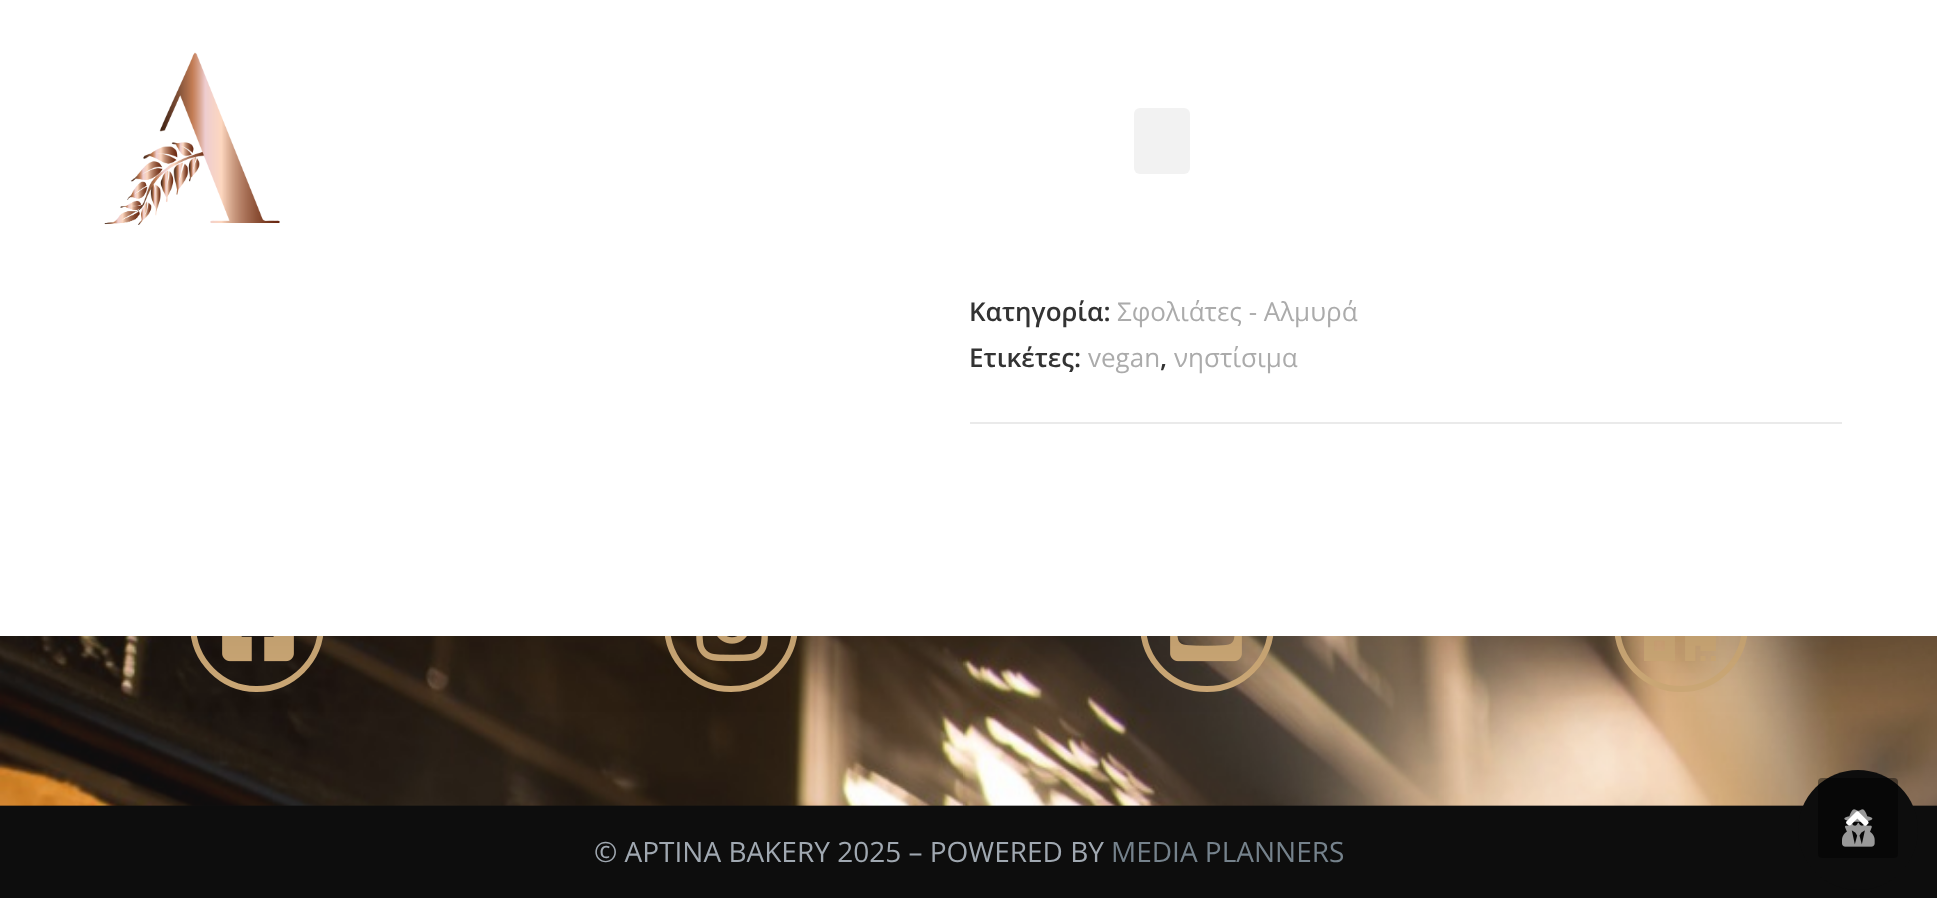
<svg xmlns="http://www.w3.org/2000/svg" width="1937" height="898">
	<rect width="100%" height="100%" fill="#0D0D0D" />
	<rect x="0" y="805" width="1937" height="1" fill="#101010" />
	<image x="0" y="636" width="1937" height="170" href="assets/img2.png" />
	<circle cx="257" cy="625" r="64" fill="none" stroke="#CCA876" stroke-width="6" />
	<image x="222" y="636" width="72" height="26" href="assets/img3.png" />
	<circle cx="731" cy="625" r="64" fill="none" stroke="#CCA876" stroke-width="6" />
	<image x="696" y="636" width="72" height="26" href="assets/img4.png" />
	<circle cx="1207" cy="625" r="64" fill="none" stroke="#CCA876" stroke-width="6" />
	<image x="1170" y="636" width="72" height="26" href="assets/img5.png" />
	<circle cx="1681" cy="625" r="64" fill="none" stroke="#CCA876" stroke-width="6" />
	<image x="1644" y="636" width="72" height="25" href="assets/img6.png" />
	<rect x="0" y="-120" width="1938" height="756" fill="#000000" fill-opacity="0.1" filter="blur(40px)" />
	<rect x="0" y="0" width="1937" height="636" fill="#FFFFFF" />
	<image x="104" y="52" width="176" height="173" href="assets/img1.png" />
	<rect x="1134" y="108" width="56" height="66" rx="6" fill="#F2F2F2" />
	<rect x="970" y="422" width="872" height="2" fill="#EAEAEA" />
	<text x="969" y="321" font-family="Open Sans" font-size="26" font-weight="600" fill="#333333">Κατηγορία:</text>
	<text x="1117" y="321" font-family="Open Sans" font-size="26" fill="#ABABAB">Σφολιάτες - Αλμυρά</text>
	<text x="969" y="367" font-family="Open Sans" font-size="26" font-weight="600" fill="#333333">Ετικέτες:</text>
	<text x="1088" y="367" font-family="Open Sans" font-size="26" fill="#ABABAB">vegan</text>
	<text x="1160" y="367" font-family="Open Sans" font-size="26" font-weight="600" fill="#333333">,</text>
	<text x="1174" y="367" font-family="Open Sans" font-size="26" fill="#ABABAB">νηστίσιμα</text>
	<text x="594" y="862" font-family="Open Sans" font-size="28" fill="#A0A8B1">© ΑΡΤΙΝΑ BAKERY 2025 – POWERED BY</text>
	<text x="1111" y="862" font-family="Open Sans" font-size="28" fill="#75828C">MEDIA PLANNERS</text>
	<circle cx="1858" cy="830" r="60" fill="#0D0D0D" />
	<image x="1842" y="809" width="33" height="38" href="assets/img7.png" />
	<rect x="1818" y="778" width="80" height="80" rx="4" fill="#000000" fill-opacity="0.4" />
	<image x="1846" y="811" width="23" height="15" href="assets/img8.png" />
</svg>
